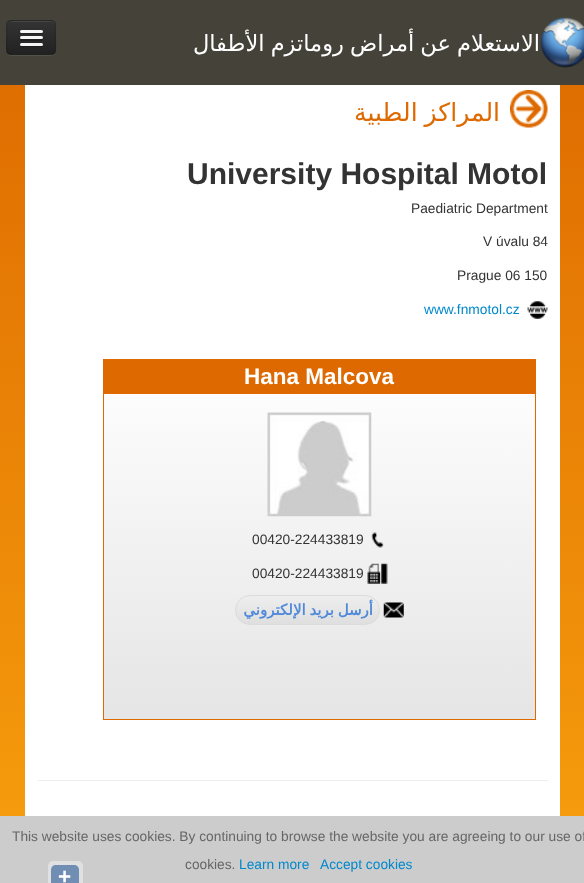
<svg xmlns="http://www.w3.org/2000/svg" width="584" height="883">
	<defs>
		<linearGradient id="g1" gradientUnits="userSpaceOnUse" x1="292" y1="0" x2="293" y2="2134"><stop offset="0" stop-color="#DD6900" /><stop offset="0.54" stop-color="#FFAF11" /><stop offset="1" stop-color="#DD6900" /></linearGradient>
		<clipPath id="clip1"><rect x="6" y="20" width="50" height="35" rx="5" /></clipPath>
		<linearGradient id="g2" gradientUnits="userSpaceOnUse" x1="31" y1="21" x2="31" y2="54"><stop offset="0" stop-color="#333333" /><stop offset="1" stop-color="#222222" /></linearGradient>
		<linearGradient id="g3" gradientUnits="userSpaceOnUse" x1="319" y1="360" x2="319" y2="719"><stop offset="0" stop-color="#FFFFFF" /><stop offset="1" stop-color="#E5E5E5" /></linearGradient>
		<clipPath id="clip2"><rect x="235" y="595" width="145" height="30" rx="15" /></clipPath>
		<linearGradient id="g4" gradientUnits="userSpaceOnUse" x1="236" y1="596" x2="236" y2="624"><stop offset="0.05" stop-color="#EDEDED" /><stop offset="1" stop-color="#DFDFDF" /></linearGradient>
	</defs>
	<rect width="100%" height="100%" fill="#FFFFFF" />
	<rect x="0" y="85" width="584" height="731" fill="url(#g1)" />
	<rect x="0" y="0" width="584" height="85" fill="#454339" />
	<path d="M6 24V38C6 58 4 56 24 56H44C48 56 55 57 56 52C55 54 53 55 51 55H11C8 55 6 53 6 50Z" fill="#535148" />
	<rect x="6" y="20" width="50" height="35" rx="5" fill="#2C2C2C" />
	<g clip-path="url(#clip1)">
		<rect x="6" y="21" width="50" height="33" fill="url(#g2)" />
	</g>
	<path d="M11 22H51C53 22 55 24 55 26C55 20 49 21 44 21H18C14 21 8 20 8 26C8 24 9 22 11 22Z" fill="#474747" />
	<path d="M54.5 53C53.5 54 52.5 54.5 51 54.5H11.5C10 54.5 9 54 8 53" fill="none" stroke="#000000" stroke-opacity="0.25" stroke-width="1.2" />
	<path d="M8 53C5.5 50.5 7 40.5 7 37.5V29C7 26 6.5 21.5 10.5 20.5H52C56 21.5 55.5 26 55.5 29V37.5C55.5 40.5 57 50.5 54.5 53" fill="none" stroke="#000000" stroke-opacity="0.1" stroke-width="1.2" />
	<path d="M20 32C19 34.5 24 34 25 34H38C39 34 42.5 35 43 33C43 32.5 43 31.5 42.5 31.5C42.5 32 42 32.5 41 32.5H21C21 32.5 20.5 32 20 32Z" fill="#222222" />
	<rect x="20" y="30" width="23" height="3" rx="1.5" fill="#F5F5F5" />
	<path d="M20.5 38.5L20 40C20.5 42 24 41 25 41H28C30 41 41.5 41.5 42.5 40.5C43 40 43 39 42.5 38L41.5 38.5C39.5 39 21 39 20.5 38.5Z" fill="#1F1F1F" />
	<rect x="20" y="36" width="23" height="3" rx="1.5" fill="#F5F5F5" />
	<path d="M20.5 44.5L20 46C20.5 48 24 47 25 47H38C39.5 47 43 48 43 45.5L42.5 44.5L41.5 45C39.5 45.5 21 45.5 20.5 44.5Z" fill="#1D1D1D" />
	<rect x="20" y="43" width="23" height="3" rx="1.5" fill="#F5F5F5" />
	<text x="540" y="51" word-spacing="-1" font-family="DejaVu Sans" font-size="22.5" direction="rtl" fill="#FFFFFF">الاستعلام عن أمراض روماتزم الأطفال</text>
	<image x="540" y="17" width="44" height="51" href="assets/img1.png" />
	<rect x="25" y="85" width="535" height="731" fill="#FFFFFF" />
	<text x="500" y="121" word-spacing="-1" font-family="DejaVu Sans" font-size="25" direction="rtl" fill="#DD6900">المراكز الطبية</text>
	<image x="510" y="90" width="38" height="38" href="assets/img2.png" />
	<text x="187" y="184" font-family="Liberation Sans" font-size="30" font-weight="700" fill="#333333">University Hospital Motol</text>
	<g font-family="Liberation Sans" font-size="13.75" fill="#333333">
		<text x="411" y="213">Paediatric Department</text>
		<text x="483" y="246">V úvalu 84</text>
		<text x="457" y="280">Prague 06 150</text>
	</g>
	<text x="424" y="314" font-family="Liberation Sans" font-size="13.75" fill="#0088CC">www.fnmotol.cz</text>
	<image x="527" y="301" width="21" height="18" href="assets/img3.png" />
	<rect x="104" y="395" width="431" height="324" fill="url(#g3)" />
	<rect x="103.5" y="359.5" width="432" height="360" fill="none" stroke="#DD6900" />
	<rect x="104" y="360" width="431" height="34" fill="#DD6900" />
	<text x="244" y="384" font-family="Liberation Sans" font-size="22.5" font-weight="700" fill="#FFFFFF">Hana Malcova</text>
	<image x="267" y="412" width="105" height="105" href="assets/img4.png" />
	<text x="252" y="544" font-family="Liberation Sans" font-size="13.75" fill="#333333">00420-224433819</text>
	<image x="371" y="532" width="13" height="16" href="assets/img5.png" />
	<text x="252" y="578" font-family="Liberation Sans" font-size="13.75" fill="#333333">00420-224433819</text>
	<image x="367" y="563" width="21" height="21" href="assets/img6.png" />
	<g clip-path="url(#clip2)">
		<rect x="235" y="596" width="145" height="28" fill="url(#g4)" />
	</g>
	<rect x="235.5" y="595.5" width="144" height="29" rx="14.5" fill="none" stroke="#DCDCDC" />
	<text x="373" y="615" word-spacing="-1" font-family="DejaVu Sans" font-size="15" font-weight="700" direction="rtl" fill="#4F89D9">أرسل بريد الإلكتروني</text>
	<image x="383" y="602" width="21" height="16" href="assets/img7.png" />
	<rect x="38" y="780" width="510" height="1" fill="#EEEEEE" />
	<rect x="0" y="816" width="584" height="67" fill="#CCCCCC" />
	<rect x="48" y="861" width="35" height="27" rx="5" fill="#E0E0E0" />
	<path d="M56 865H74C77 865 79 867 79 870V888H51V870C51 867 53 865 56 865Z" fill="#708EB4" />
	<text x="58" y="884" font-family="Liberation Sans" font-size="22.5" font-weight="700" fill="#FFFFFF">+</text>
	<g font-family="Liberation Sans" font-size="13.75" fill="#666666">
		<text x="12" y="841">This website uses cookies. By continuing to browse the website you are agreeing to our use of</text>
		<text x="185" y="869">cookies.</text>
	</g>
	<g font-family="Liberation Sans" font-size="13.75" fill="#0088CC">
		<text x="239" y="869">Learn more</text>
		<text x="320" y="869">Accept cookies</text>
	</g>
</svg>
